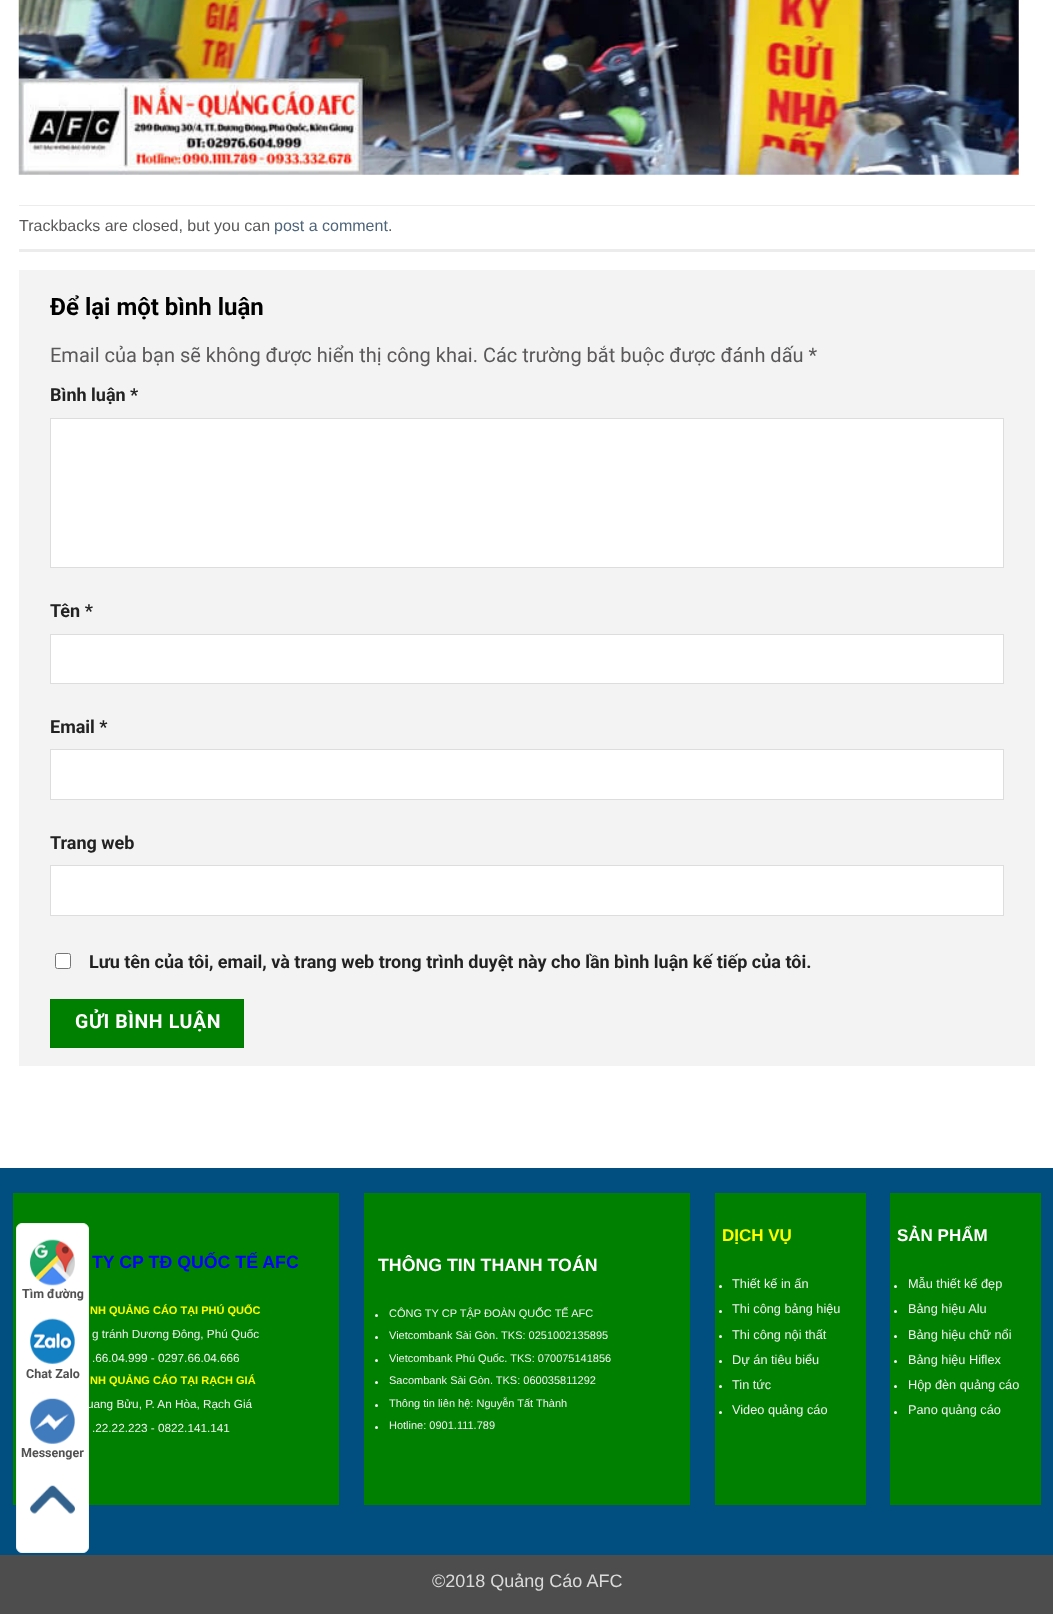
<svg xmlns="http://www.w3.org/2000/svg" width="1053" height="1614">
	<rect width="100%" height="100%" fill="#FFFFFF" />
	<image x="18" y="0" width="1001" height="175" href="assets/img1.png" />
	<rect x="19" y="205" width="1016" height="1" fill="#ECECEC" />
	<rect x="19" y="249" width="1016" height="3" fill="#ECECEC" />
	<text x="19" y="231" font-family="Liberation Sans" font-size="16" fill="#5A5858">Trackbacks are closed, but you can</text>
	<text x="274" y="231" font-family="Liberation Sans" font-size="16" fill="#4E657B">post a comment</text>
	<text x="388" y="231" font-family="Liberation Sans" font-size="16" fill="#5A5858">.</text>
	<rect x="19" y="270" width="1016" height="796" fill="#F3F3F3" />
	<text x="50" y="315" font-family="Roboto" font-size="24" font-weight="700" fill="#000000">Để lại một bình luận</text>
	<text x="50" y="362" font-family="Roboto" font-size="20" fill="#5A5858">Email của bạn sẽ không được hiển thị công khai. Các trường bắt buộc được đánh dấu *</text>
	<text x="50" y="401" font-family="Roboto" font-size="18" font-weight="700" fill="#222222">Bình luận *</text>
	<rect x="50.5" y="418.5" width="953" height="149" fill="#FFFFFF" stroke="#DDDDDD" />
	<text x="50" y="617" font-family="Roboto" font-size="18" font-weight="700" fill="#222222">Tên *</text>
	<rect x="50.5" y="634.5" width="953" height="49" fill="#FFFFFF" stroke="#DDDDDD" />
	<text x="50" y="733" font-family="Roboto" font-size="18" font-weight="700" fill="#222222">Email *</text>
	<rect x="50.5" y="749.5" width="953" height="50" fill="#FFFFFF" stroke="#DDDDDD" />
	<text x="50" y="849" font-family="Roboto" font-size="18" font-weight="700" fill="#222222">Trang web</text>
	<rect x="50.5" y="865.5" width="953" height="50" fill="#FFFFFF" stroke="#DDDDDD" />
	<rect x="55.5" y="953.5" width="15" height="15" rx="2" fill="#FFFFFF" stroke="#767676" />
	<text x="89" y="968" font-family="Roboto" font-size="18" font-weight="700" fill="#222222">Lưu tên của tôi, email, và trang web trong trình duyệt này cho lần bình luận kế tiếp của tôi.</text>
	<rect x="50.5" y="999.5" width="193" height="48" fill="#008000" stroke="#007A00" />
	<text x="75" y="1028" font-family="Roboto" font-size="19.5" font-weight="700" letter-spacing="0.6" fill="#FFFFFF">GỬI BÌNH LUẬN</text>
	<rect x="0" y="1168" width="1053" height="387" fill="#004F80" />
	<rect x="13" y="1193" width="326" height="312" fill="#008000" />
	<text x="92" y="1268" font-family="Liberation Sans" font-size="17.75" font-weight="700" fill="#0000FF">TY CP TĐ QUỐC TẾ AFC</text>
	<text x="90" y="1314" font-family="Liberation Sans" font-size="11" font-weight="700" fill="#FFFF00">NH QUẢNG CÁO TẠI PHÚ QUỐC</text>
	<g font-family="Liberation Sans" font-size="11.75" fill="#F1F1F1">
		<text x="92" y="1338">g tránh Dương Đông, Phú Quốc</text>
		<text x="92" y="1362">.66.04.999 - 0297.66.04.666</text>
	</g>
	<text x="90" y="1384" font-family="Liberation Sans" font-size="11" font-weight="700" fill="#FFFF00">NH QUẢNG CÁO TẠI RẠCH GIÁ</text>
	<g font-family="Liberation Sans" font-size="11.75" fill="#F1F1F1">
		<text x="87" y="1408">uang Bửu, P. An Hòa, Rạch Giá</text>
		<text x="92" y="1432">.22.22.223 - 0822.141.141</text>
	</g>
	<rect x="364" y="1193" width="326" height="312" fill="#008000" />
	<text x="378" y="1271" font-family="Liberation Sans" font-size="17.75" font-weight="700" fill="#FFFFFF">THÔNG TIN THANH TOÁN</text>
	<circle cx="376.5" cy="1315.5" r="1.5" fill="#F1F1F1" />
	<text x="389" y="1317" font-family="Liberation Sans" font-size="11" fill="#F1F1F1">CÔNG TY CP TẬP ĐOÀN QUỐC TẾ AFC</text>
	<circle cx="376.5" cy="1337.5" r="1.5" fill="#F1F1F1" />
	<text x="389" y="1339" font-family="Liberation Sans" font-size="11" fill="#F1F1F1">Vietcombank Sài Gòn. TKS: 0251002135895</text>
	<circle cx="376.5" cy="1360.5" r="1.5" fill="#F1F1F1" />
	<text x="389" y="1362" font-family="Liberation Sans" font-size="11" fill="#F1F1F1">Vietcombank Phú Quốc. TKS: 070075141856</text>
	<circle cx="376.5" cy="1382.5" r="1.5" fill="#F1F1F1" />
	<text x="389" y="1384" font-family="Liberation Sans" font-size="11" fill="#F1F1F1">Sacombank Sài Gòn. TKS: 060035811292</text>
	<circle cx="376.5" cy="1405.5" r="1.5" fill="#F1F1F1" />
	<text x="389" y="1407" font-family="Liberation Sans" font-size="11" fill="#F1F1F1">Thông tin liên hệ: Nguyễn Tất Thành</text>
	<circle cx="376.5" cy="1427.5" r="1.5" fill="#F1F1F1" />
	<text x="389" y="1429" font-family="Liberation Sans" font-size="11" fill="#F1F1F1">Hotline: 0901.111.789</text>
	<rect x="715" y="1193" width="151" height="312" fill="#008000" />
	<text x="722" y="1241" font-family="Liberation Sans" font-size="17" font-weight="700" fill="#FFFF00">DỊCH VỤ</text>
	<circle cx="720.5" cy="1286.5" r="1.5" fill="#F1F1F1" />
	<text x="732" y="1288" font-family="Liberation Sans" font-size="12.75" fill="#F1F1F1">Thiết kế in ấn</text>
	<circle cx="720.5" cy="1311.5" r="1.5" fill="#F1F1F1" />
	<text x="732" y="1313" font-family="Liberation Sans" font-size="12.75" fill="#F1F1F1">Thi công bảng hiệu</text>
	<circle cx="720.5" cy="1336.5" r="1.5" fill="#F1F1F1" />
	<text x="732" y="1339" font-family="Liberation Sans" font-size="12.75" fill="#F1F1F1">Thi công nội thất</text>
	<circle cx="720.5" cy="1361.5" r="1.5" fill="#F1F1F1" />
	<text x="732" y="1364" font-family="Liberation Sans" font-size="12.75" fill="#F1F1F1">Dự án tiêu biểu</text>
	<circle cx="720.5" cy="1386.5" r="1.5" fill="#F1F1F1" />
	<text x="732" y="1389" font-family="Liberation Sans" font-size="12.75" fill="#F1F1F1">Tin tức</text>
	<circle cx="720.5" cy="1412.5" r="1.5" fill="#F1F1F1" />
	<text x="732" y="1414" font-family="Liberation Sans" font-size="12.75" fill="#F1F1F1">Video quảng cáo</text>
	<rect x="890" y="1193" width="151" height="312" fill="#008000" />
	<text x="897" y="1241" font-family="Liberation Sans" font-size="17" font-weight="700" fill="#FFFFFF">SẢN PHẨM</text>
	<circle cx="895.5" cy="1286.5" r="1.5" fill="#F1F1F1" />
	<text x="908" y="1288" font-family="Liberation Sans" font-size="12.75" fill="#F1F1F1">Mẫu thiết kế đẹp</text>
	<circle cx="895.5" cy="1311.5" r="1.5" fill="#F1F1F1" />
	<text x="908" y="1313" font-family="Liberation Sans" font-size="12.75" fill="#F1F1F1">Bảng hiệu Alu</text>
	<circle cx="895.5" cy="1336.5" r="1.5" fill="#F1F1F1" />
	<text x="908" y="1339" font-family="Liberation Sans" font-size="12.75" fill="#F1F1F1">Bảng hiệu chữ nổi</text>
	<circle cx="895.5" cy="1361.5" r="1.5" fill="#F1F1F1" />
	<text x="908" y="1364" font-family="Liberation Sans" font-size="12.75" fill="#F1F1F1">Bảng hiệu Hiflex</text>
	<circle cx="895.5" cy="1386.5" r="1.5" fill="#F1F1F1" />
	<text x="908" y="1389" font-family="Liberation Sans" font-size="12.75" fill="#F1F1F1">Hộp đèn quảng cáo</text>
	<circle cx="895.5" cy="1412.5" r="1.5" fill="#F1F1F1" />
	<text x="908" y="1414" font-family="Liberation Sans" font-size="12.75" fill="#F1F1F1">Pano quảng cáo</text>
	<rect x="0" y="1555" width="1053" height="59" fill="#4D4D4D" />
	<text x="432" y="1587" font-family="Liberation Sans" font-size="18" fill="#DBDBDB">©2018 Quảng Cáo AFC</text>
	<rect x="16.5" y="1223.5" width="72" height="329" rx="5.5" fill="#FFFFFF" stroke="#F2F2F2" />
	<image x="30" y="1239" width="45" height="47" href="assets/img2.png" />
	<text x="22" y="1298" font-family="Roboto" font-size="12.5" font-weight="700" fill="#515151">Tìm đường</text>
	<image x="30" y="1318" width="45" height="46" href="assets/img3.png" />
	<text x="26" y="1378" font-family="Roboto" font-size="12.5" font-weight="700" fill="#515151">Chat Zalo</text>
	<image x="30" y="1398" width="45" height="46" href="assets/img4.png" />
	<text x="21" y="1457" font-family="Roboto" font-size="12.5" font-weight="700" fill="#515151">Messenger</text>
	<image x="30" y="1485" width="45" height="29" href="assets/img5.png" />
</svg>
